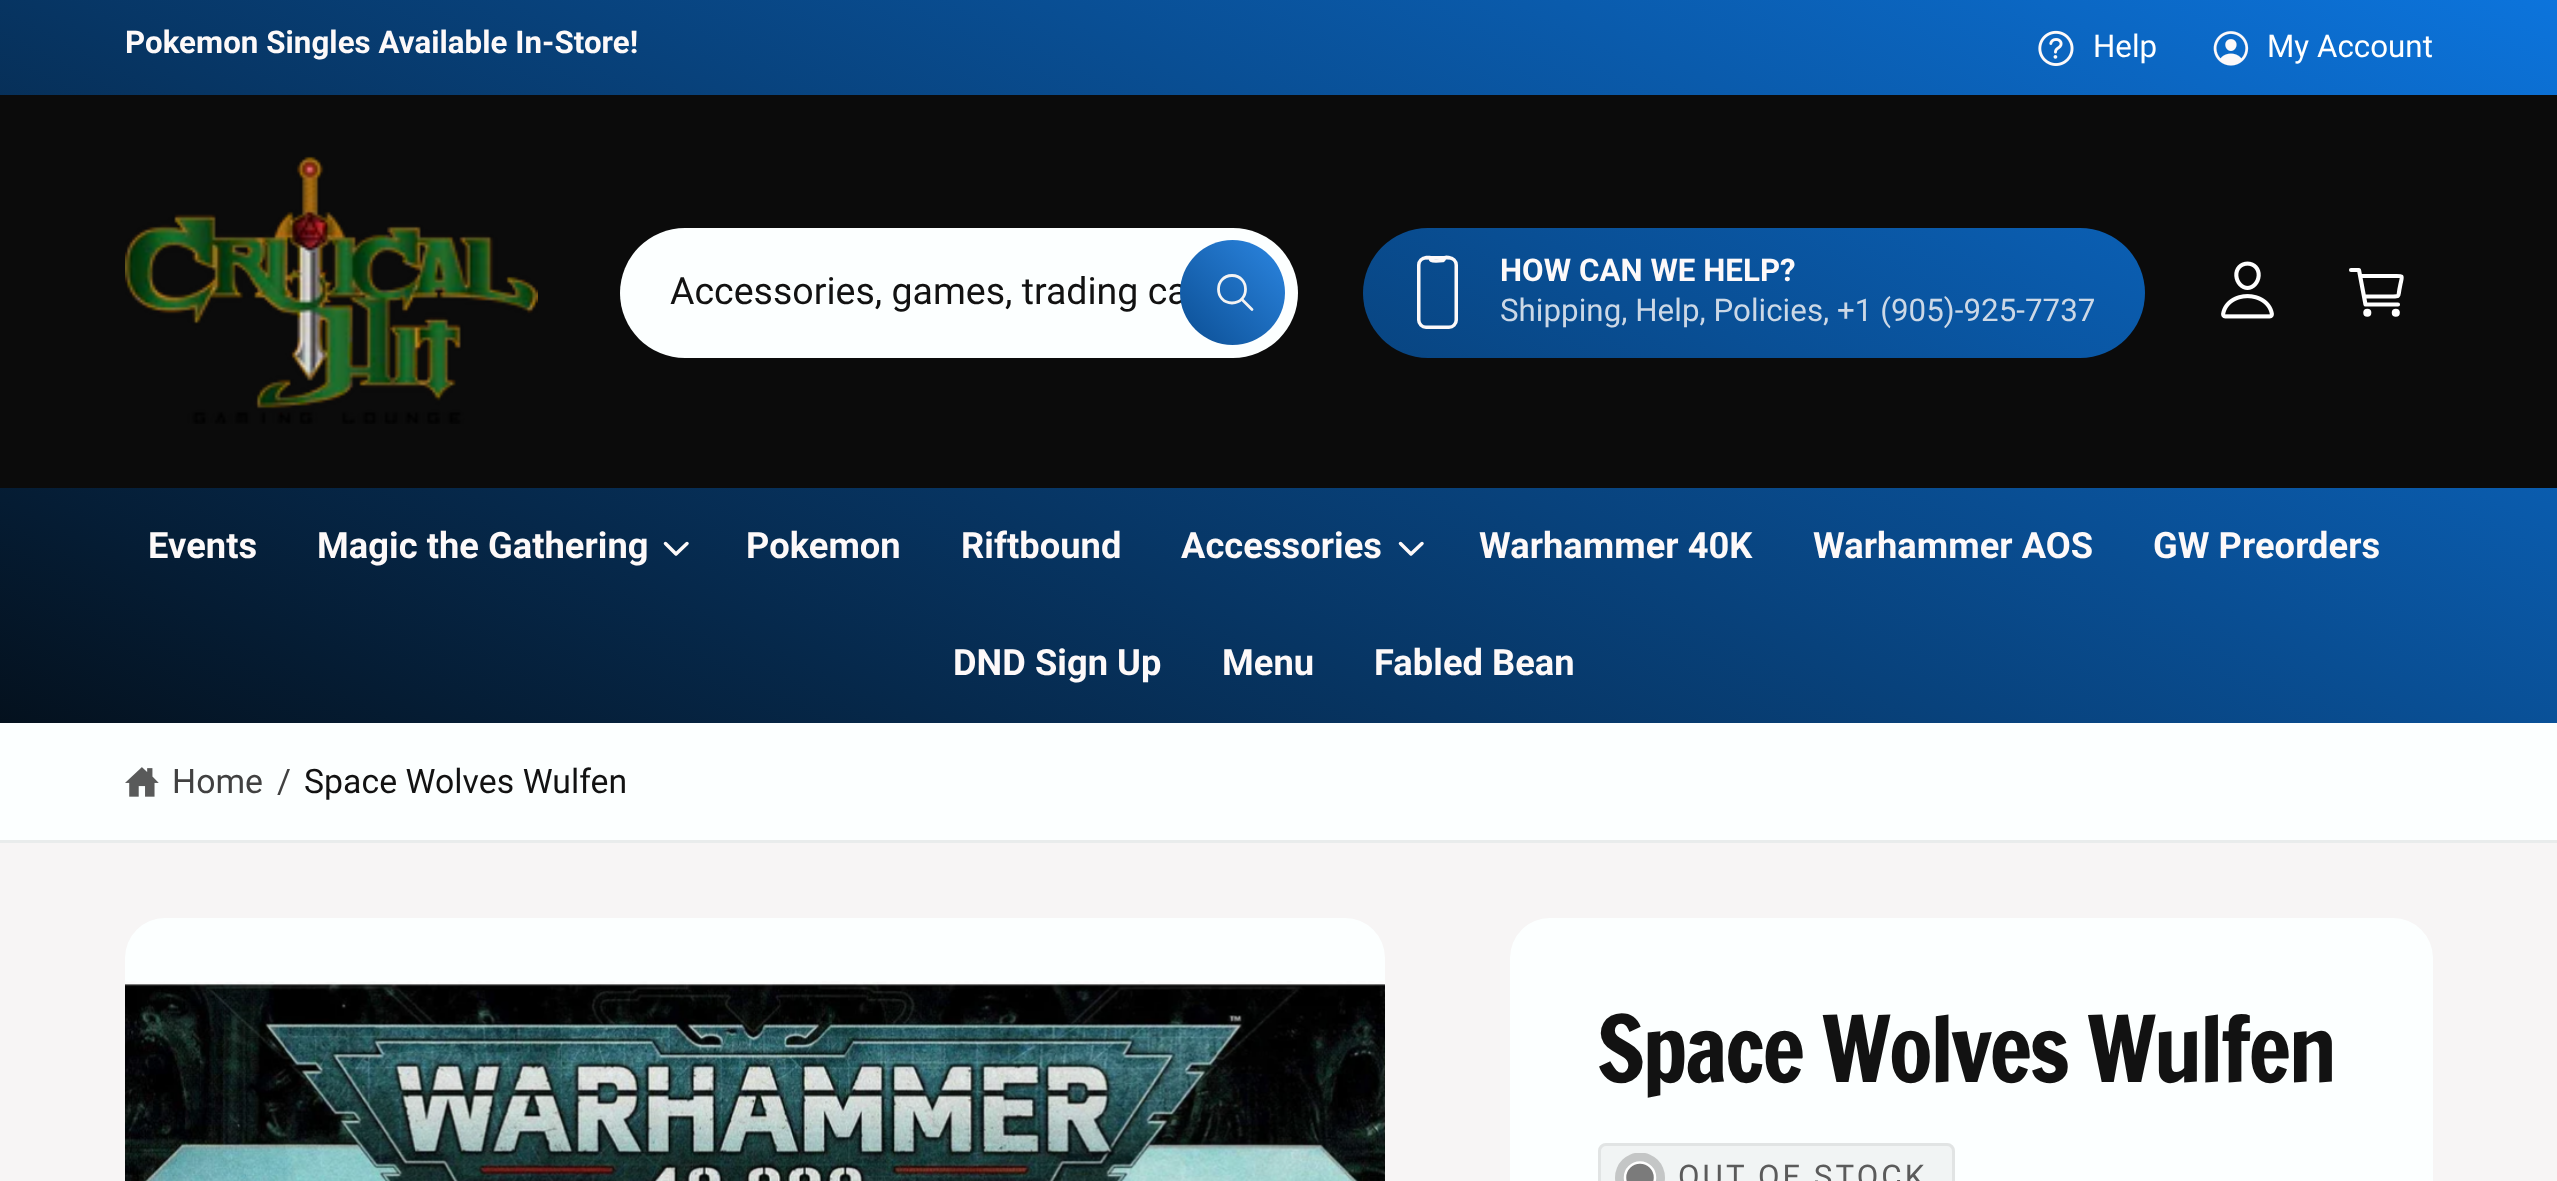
<svg xmlns="http://www.w3.org/2000/svg" width="2557" height="1181">
	<defs>
		<linearGradient id="g1" gradientUnits="userSpaceOnUse" x1="776" y1="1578" x2="1781" y2="-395"><stop offset="0.07" stop-color="#030303" /><stop offset="1" stop-color="#0C74DC" /></linearGradient>
		<linearGradient id="g2" gradientUnits="userSpaceOnUse" x1="1179" y1="344" x2="1286" y2="241"><stop offset="0.12" stop-color="#0F559D" /><stop offset="0.86" stop-color="#277ED6" /></linearGradient>
		<clipPath id="clip1"><rect x="1615" y="1153" width="50" height="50" /></clipPath>
	</defs>
	<rect width="100%" height="100%" fill="#F7F5F5" />
	<rect x="0" y="0" width="2557" height="95" fill="url(#g1)" />
	<text x="125" y="53" font-family="Roboto" font-size="31.25" font-weight="700" letter-spacing="0.05" fill="#FDF9F9">Pokemon Singles Available In-Store!</text>
	<image x="2038" y="30" width="36" height="36" href="assets/img1.png" />
	<text x="2093" y="57" font-family="Roboto" font-size="31.25" letter-spacing="0.05" fill="#FFFFFF">Help</text>
	<image x="2213" y="31" width="36" height="35" href="assets/img2.png" />
	<text x="2267" y="57" font-family="Roboto" font-size="31.25" letter-spacing="0.05" fill="#FFFFFF">My Account</text>
	<rect x="0" y="95" width="2557" height="393" fill="#0B0B0B" />
	<image x="125" y="156" width="413" height="268" href="assets/img3.png" />
	<rect x="620" y="228" width="678" height="130" rx="65" fill="#FCFFFF" />
	<text x="670" y="304" font-family="Roboto" font-size="37.5" fill="#121212">Accessories, games, trading ca</text>
	<circle cx="1232.5" cy="292.5" r="52.5" fill="url(#g2)" />
	<path d="M1232 275.5C1214 275.5 1214 303 1232 303C1250 303 1250 275.5 1232 275.5Z" fill="none" stroke="#F3F3F3" stroke-width="2.8" />
	<path d="M1242 299.5L1252 309.5" fill="none" stroke="#F3F3F3" stroke-width="2.8" stroke-linecap="round" />
	<rect x="1363" y="228" width="782" height="130" rx="65" fill="url(#g1)" />
	<rect x="1418.75" y="257.75" width="37.5" height="69.5" rx="7.25" fill="none" stroke="#FDF9F9" stroke-width="3.5" />
	<path d="M1426 257.5H1430C1432 258.5 1427.5 261 1436 261L1443 260.5C1444.5 260 1444 259 1444.5 258C1445 256.5 1448 257.5 1449 257.5" fill="none" stroke="#FDF9F9" stroke-width="3.5" stroke-linecap="round" stroke-linejoin="round" />
	<text x="1500" y="281" font-family="Roboto" font-size="31.25" font-weight="700" letter-spacing="0.05" fill="#FDF9F9">HOW CAN WE HELP?</text>
	<text x="1500" y="321" font-family="Roboto" font-size="31.25" letter-spacing="0.05" fill="#CCD8E6">Shipping, Help, Policies, +1 (905)-925-7737</text>
	<image x="2221" y="261" width="53" height="58" href="assets/img4.png" />
	<circle cx="2367.3" cy="312.8" r="2" fill="none" stroke="#FFFFFF" stroke-width="4.1" />
	<circle cx="2395.8" cy="312.8" r="2" fill="none" stroke="#FFFFFF" stroke-width="4.1" />
	<path d="M2351 270H2359L2365.5 304.5H2398M2365.5 296.5H2391.5C2401 296.5 2397.5 297 2400 286.5C2402 275 2404.5 276 2394 276H2361" fill="none" stroke="#FFFFFF" stroke-width="4.1" stroke-linecap="round" stroke-linejoin="round" />
	<rect x="0" y="488" width="2557" height="235" fill="url(#g1)" />
	<g font-family="Roboto" font-size="36.25" font-weight="700" letter-spacing="0.05" fill="#FDF9F9">
		<text x="148" y="558">Events</text>
		<text x="317" y="558">Magic the Gathering</text>
	</g>
	<path d="M665.5 543.5L676 554L687 543.5" fill="none" stroke="#FDF9F9" stroke-width="3.5" stroke-linecap="round" stroke-linejoin="round" />
	<g font-family="Roboto" font-size="36.25" font-weight="700" letter-spacing="0.05" fill="#FDF9F9">
		<text x="746" y="558">Pokemon</text>
		<text x="961" y="558">Riftbound</text>
		<text x="1181" y="558">Accessories</text>
	</g>
	<path d="M1400.5 543.5L1411 554L1422 543.5" fill="none" stroke="#FDF9F9" stroke-width="3.5" stroke-linecap="round" stroke-linejoin="round" />
	<g font-family="Roboto" font-size="36.25" font-weight="700" letter-spacing="0.05" fill="#FDF9F9">
		<text x="1479" y="558">Warhammer 40K</text>
		<text x="1813" y="558">Warhammer AOS</text>
		<text x="2153" y="558">GW Preorders</text>
		<text x="953" y="675">DND Sign Up</text>
		<text x="1222" y="675">Menu</text>
		<text x="1374" y="675">Fabled Bean</text>
	</g>
	<rect x="0" y="723" width="2557" height="117" fill="#FCFFFF" />
	<rect x="0" y="840" width="2557" height="3" fill="#E9ECEC" />
	<image x="125" y="767" width="34" height="30" href="assets/img5.png" />
	<g font-family="Roboto" font-size="33.75" letter-spacing="0.05" fill="#414141">
		<text x="172" y="793">Home</text>
		<text x="277" y="793">/</text>
	</g>
	<text x="304" y="793" font-family="Roboto" font-size="33.75" letter-spacing="0.05" fill="#121212">Space Wolves Wulfen</text>
	<rect x="125" y="918" width="1260" height="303" rx="40" fill="#FCFFFF" />
	<image x="125" y="981" width="1260" height="200" href="assets/img6.png" />
	<rect x="1510" y="918" width="923" height="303" rx="40" fill="#FCFFFF" />
	<text x="1597" y="1082" font-family="Francois One" font-size="90" letter-spacing="-2.6" fill="#121212">Space Wolves Wulfen</text>
	<rect x="1598" y="1143" width="357" height="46" rx="8" fill="#F1F4F4" />
	<rect x="1599.5" y="1144.5" width="354" height="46" rx="6.5" fill="none" stroke="#5B5B5B" stroke-opacity="0.1" stroke-width="3" />
	<g clip-path="url(#clip1)">
		<circle cx="1640" cy="1177.5" r="25" fill="#C4C6C6" />
	</g>
	<circle cx="1640" cy="1177.5" r="15" fill="#7B7B7B" stroke="#FFFFFF" stroke-width="2.5" />
	<text x="1678" y="1187" font-family="Roboto" font-size="31.25" letter-spacing="3.1" fill="#5B5B5B">OUT OF STOCK</text>
</svg>
